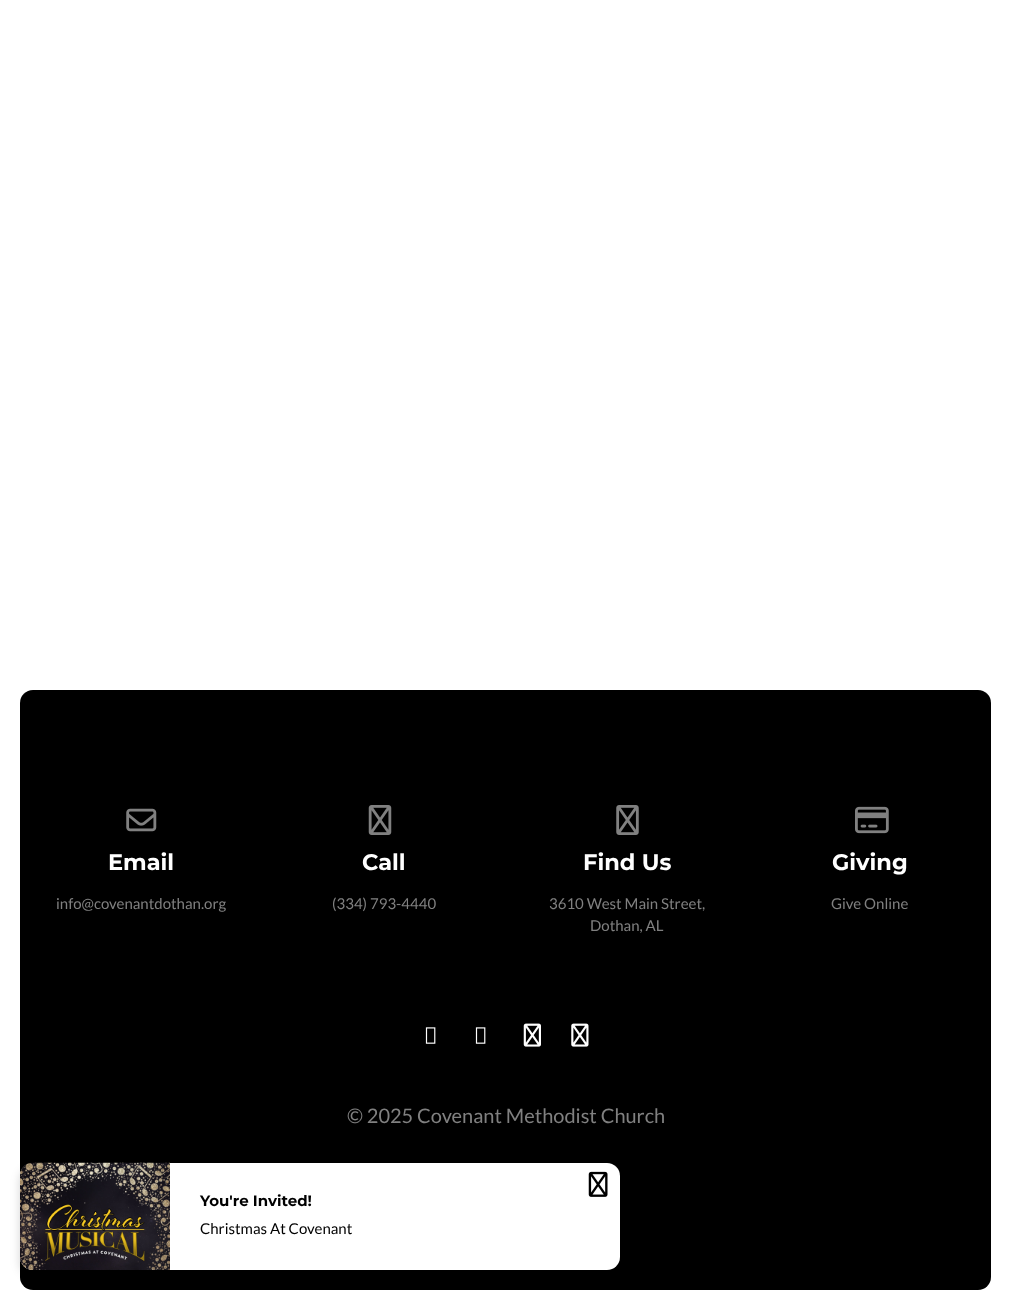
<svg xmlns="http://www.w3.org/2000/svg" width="1011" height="1300">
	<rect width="100%" height="100%" fill="#FFFFFF" />
	<rect x="20" y="690" width="971" height="600" rx="13" fill="#000000" />
	<image x="126" y="808" width="31" height="24" href="assets/img1.png" />
	<text x="108" y="870" font-family="Montserrat" font-size="22.5" font-weight="700" fill="#FFFFFF">Email</text>
	<text x="56" y="909" font-family="Lato" font-size="15" fill="#808080">info@covenantdothan.org</text>
	<image x="368" y="805" width="24" height="30" href="assets/img2.png" />
	<text x="362" y="870" font-family="Montserrat" font-size="22.5" font-weight="700" fill="#FFFFFF">Call</text>
	<text x="332" y="909" font-family="Lato" font-size="15" fill="#808080">(334) 793-4440</text>
	<image x="616" y="805" width="23" height="30" href="assets/img3.png" />
	<text x="583" y="870" font-family="Montserrat" font-size="22.5" font-weight="700" fill="#FFFFFF">Find Us</text>
	<g font-family="Lato" font-size="15" fill="#808080">
		<text x="549" y="909">3610 West Main Street,</text>
		<text x="590" y="931">Dothan, AL</text>
	</g>
	<image x="855" y="806" width="34" height="28" href="assets/img4.png" />
	<text x="832" y="870" font-family="Montserrat" font-size="22.5" font-weight="700" fill="#FFFFFF">Giving</text>
	<text x="831" y="909" font-family="Lato" font-size="15" fill="#808080">Give Online</text>
	<image x="425" y="1027" width="11" height="17" href="assets/img5.png" />
	<image x="475" y="1027" width="11" height="17" href="assets/img5.png" />
	<image x="523" y="1023" width="18" height="24" href="assets/img6.png" />
	<image x="571" y="1023" width="18" height="24" href="assets/img7.png" />
	<text x="347" y="1123" font-family="Lato" font-size="20" fill="#808080">© 2025 Covenant Methodist Church</text>
	<rect x="20" y="1168" width="600" height="107" rx="13" fill="#000000" fill-opacity="0.17" filter="blur(5px)" />
	<rect x="20" y="1163" width="600" height="107" rx="13" fill="#FFFFFF" />
	<image x="588" y="1171" width="20" height="26" href="assets/img8.png" />
	<image x="20" y="1162" width="150" height="108" href="assets/img9.png" />
	<text x="200" y="1206" font-family="Montserrat" font-size="15" font-weight="700" fill="#000000">You're Invited!</text>
	<text x="200" y="1234" font-family="Lato" font-size="15" fill="#000000">Christmas At Covenant</text>
</svg>
